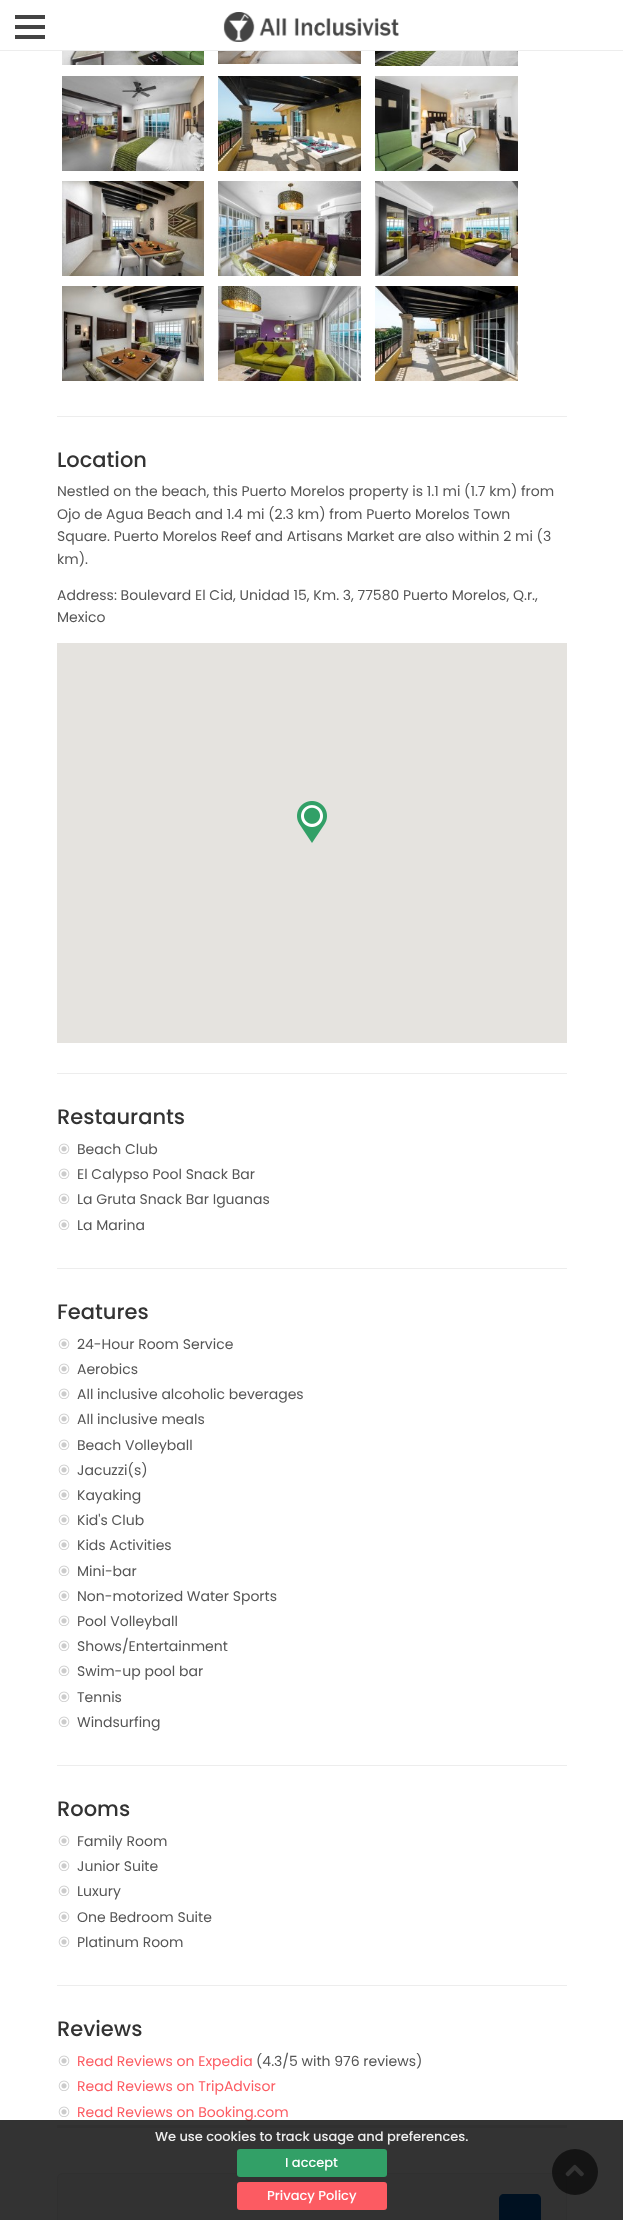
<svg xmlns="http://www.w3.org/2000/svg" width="623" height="2220">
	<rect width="100%" height="100%" fill="#FFFFFF" />
	<rect x="0" y="50" width="623" height="1" fill="#EDEDED" />
	<rect x="15" y="25" width="30" height="4" fill="#444444" />
	<rect x="15" y="15" width="30" height="4" fill="#444444" />
	<rect x="15" y="35" width="30" height="4" fill="#444444" />
	<image x="223" y="12" width="176" height="30" href="assets/img1.png" />
	<rect x="57" y="2125" width="510" height="3" fill="#EDEDED" />
	<image x="62" y="51" width="142" height="14" href="assets/img2.png" />
	<image x="218" y="51" width="143" height="13" href="assets/img3.png" />
	<image x="375" y="51" width="143" height="15" href="assets/img4.png" />
	<image x="62" y="76" width="142" height="95" href="assets/img5.png" />
	<image x="218" y="76" width="143" height="95" href="assets/img6.png" />
	<image x="375" y="76" width="143" height="95" href="assets/img7.png" />
	<image x="62" y="181" width="142" height="95" href="assets/img8.png" />
	<image x="218" y="181" width="143" height="95" href="assets/img9.png" />
	<image x="375" y="181" width="143" height="95" href="assets/img10.png" />
	<image x="62" y="286" width="142" height="95" href="assets/img11.png" />
	<image x="218" y="286" width="143" height="95" href="assets/img12.png" />
	<image x="375" y="286" width="143" height="95" href="assets/img13.png" />
	<rect x="57" y="416" width="510" height="1" fill="#EDEDED" />
	<text x="57" y="467" font-family="Poppins" font-size="21" font-weight="500" fill="#333333">Location</text>
	<g font-family="Poppins" font-size="14" fill="#555555">
		<text x="57" y="496">Nestled on the beach, this Puerto Morelos property is 1.1 mi (1.7 km) from</text>
		<text x="57" y="519">Ojo de Agua Beach and 1.4 mi (2.3 km) from Puerto Morelos Town</text>
		<text x="57" y="541">Square. Puerto Morelos Reef and Artisans Market are also within 2 mi (3</text>
		<text x="57" y="564">km).</text>
		<text x="57" y="600">Address: Boulevard El Cid, Unidad 15, Km. 3, 77580 Puerto Morelos, Q.r.,</text>
		<text x="57" y="622">Mexico</text>
	</g>
	<rect x="57" y="643" width="510" height="400" fill="#E5E3DF" />
	<image x="297" y="801" width="30" height="42" href="assets/img14.png" />
	<rect x="57" y="1073" width="510" height="1" fill="#EDEDED" />
	<text x="57" y="1124" font-family="Poppins" font-size="21" font-weight="500" fill="#333333">Restaurants</text>
	<image x="58" y="1143" width="12" height="11" href="assets/img15.png" />
	<text x="77" y="1154" font-family="Poppins" font-size="14" fill="#555555">Beach Club</text>
	<image x="58" y="1168" width="12" height="11" href="assets/img15.png" />
	<text x="77" y="1179" font-family="Poppins" font-size="14" fill="#555555">El Calypso Pool Snack Bar</text>
	<image x="58" y="1193" width="12" height="11" href="assets/img15.png" />
	<text x="77" y="1204" font-family="Poppins" font-size="14" fill="#555555">La Gruta Snack Bar Iguanas</text>
	<image x="58" y="1219" width="12" height="11" href="assets/img15.png" />
	<text x="77" y="1230" font-family="Poppins" font-size="14" fill="#555555">La Marina</text>
	<rect x="57" y="1268" width="510" height="1" fill="#EDEDED" />
	<text x="57" y="1319" font-family="Poppins" font-size="21" font-weight="500" fill="#333333">Features</text>
	<image x="58" y="1338" width="12" height="11" href="assets/img15.png" />
	<text x="77" y="1349" font-family="Poppins" font-size="14" fill="#555555">24-Hour Room Service</text>
	<image x="58" y="1363" width="12" height="11" href="assets/img15.png" />
	<text x="77" y="1374" font-family="Poppins" font-size="14" fill="#555555">Aerobics</text>
	<image x="58" y="1388" width="12" height="11" href="assets/img15.png" />
	<text x="77" y="1399" font-family="Poppins" font-size="14" fill="#555555">All inclusive alcoholic beverages</text>
	<image x="58" y="1413" width="12" height="11" href="assets/img15.png" />
	<text x="77" y="1424" font-family="Poppins" font-size="14" fill="#555555">All inclusive meals</text>
	<image x="58" y="1439" width="12" height="11" href="assets/img15.png" />
	<text x="77" y="1450" font-family="Poppins" font-size="14" fill="#555555">Beach Volleyball</text>
	<image x="58" y="1464" width="12" height="11" href="assets/img15.png" />
	<text x="77" y="1475" font-family="Poppins" font-size="14" fill="#555555">Jacuzzi(s)</text>
	<image x="58" y="1489" width="12" height="11" href="assets/img15.png" />
	<text x="77" y="1500" font-family="Poppins" font-size="14" fill="#555555">Kayaking</text>
	<image x="58" y="1514" width="12" height="11" href="assets/img15.png" />
	<text x="77" y="1525" font-family="Poppins" font-size="14" fill="#555555">Kid's Club</text>
	<image x="58" y="1539" width="12" height="11" href="assets/img15.png" />
	<text x="77" y="1550" font-family="Poppins" font-size="14" fill="#555555">Kids Activities</text>
	<image x="58" y="1565" width="12" height="11" href="assets/img15.png" />
	<text x="77" y="1576" font-family="Poppins" font-size="14" fill="#555555">Mini-bar</text>
	<image x="58" y="1590" width="12" height="11" href="assets/img15.png" />
	<text x="77" y="1601" font-family="Poppins" font-size="14" fill="#555555">Non-motorized Water Sports</text>
	<image x="58" y="1615" width="12" height="11" href="assets/img15.png" />
	<text x="77" y="1626" font-family="Poppins" font-size="14" fill="#555555">Pool Volleyball</text>
	<image x="58" y="1640" width="12" height="11" href="assets/img15.png" />
	<text x="77" y="1651" font-family="Poppins" font-size="14" fill="#555555">Shows/Entertainment</text>
	<image x="58" y="1665" width="12" height="11" href="assets/img15.png" />
	<text x="77" y="1676" font-family="Poppins" font-size="14" fill="#555555">Swim-up pool bar</text>
	<image x="58" y="1691" width="12" height="11" href="assets/img15.png" />
	<text x="77" y="1702" font-family="Poppins" font-size="14" fill="#555555">Tennis</text>
	<image x="58" y="1716" width="12" height="11" href="assets/img15.png" />
	<text x="77" y="1727" font-family="Poppins" font-size="14" fill="#555555">Windsurfing</text>
	<rect x="57" y="1765" width="510" height="1" fill="#EDEDED" />
	<text x="57" y="1816" font-family="Poppins" font-size="21" font-weight="500" fill="#333333">Rooms</text>
	<image x="58" y="1835" width="12" height="11" href="assets/img15.png" />
	<text x="77" y="1846" font-family="Poppins" font-size="14" fill="#555555">Family Room</text>
	<image x="58" y="1860" width="12" height="11" href="assets/img15.png" />
	<text x="77" y="1871" font-family="Poppins" font-size="14" fill="#555555">Junior Suite</text>
	<image x="58" y="1885" width="12" height="11" href="assets/img15.png" />
	<text x="77" y="1896" font-family="Poppins" font-size="14" fill="#555555">Luxury</text>
	<image x="58" y="1911" width="12" height="11" href="assets/img15.png" />
	<text x="77" y="1922" font-family="Poppins" font-size="14" fill="#555555">One Bedroom Suite</text>
	<image x="58" y="1936" width="12" height="11" href="assets/img15.png" />
	<text x="77" y="1947" font-family="Poppins" font-size="14" fill="#555555">Platinum Room</text>
	<rect x="57" y="1985" width="510" height="1" fill="#EDEDED" />
	<text x="57" y="2036" font-family="Poppins" font-size="21" font-weight="500" fill="#333333">Reviews</text>
	<image x="58" y="2055" width="12" height="11" href="assets/img15.png" />
	<text x="77" y="2066" font-family="Poppins" font-size="14" fill="#FC5B62">Read Reviews on Expedia</text>
	<text x="256" y="2066" font-family="Poppins" font-size="14" fill="#555555">(4.3/5 with 976 reviews)</text>
	<image x="58" y="2080" width="12" height="11" href="assets/img15.png" />
	<text x="77" y="2091" font-family="Poppins" font-size="14" fill="#FC5B62">Read Reviews on TripAdvisor</text>
	<image x="58" y="2106" width="12" height="11" href="assets/img15.png" />
	<text x="77" y="2117" font-family="Poppins" font-size="14" fill="#FC5B62">Read Reviews on Booking.com</text>
	<rect x="57.5" y="2173.5" width="509" height="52" rx="4.5" fill="#F8F8F8" stroke="#EDEDED" />
	<path d="M504 2194H536C539 2194 541 2196 541 2199V2220C541 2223 539 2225 536 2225H499V2199C499 2196 501 2194 504 2194Z" fill="#0054A6" />
	<circle cx="575" cy="2172" r="23" fill="#000000" fill-opacity="0.6" />
	<image x="565" y="2164" width="19" height="13" href="assets/img16.png" />
	<rect x="0" y="2120" width="623" height="100" fill="#000000" fill-opacity="0.8" />
	<text x="155" y="2141" font-family="Poppins" font-size="13" font-weight="500" fill="#EEEEEE">We use cookies to track usage and preferences.</text>
	<rect x="237" y="2149" width="150" height="28" rx="3" fill="#32A067" />
	<text x="285" y="2167" font-family="Poppins" font-size="13" font-weight="500" fill="#FFFFFF">I accept</text>
	<rect x="237" y="2182" width="150" height="28" rx="3" fill="#FC5B62" />
	<text x="267" y="2200" font-family="Poppins" font-size="13" font-weight="500" fill="#FFFFFF">Privacy Policy</text>
</svg>
